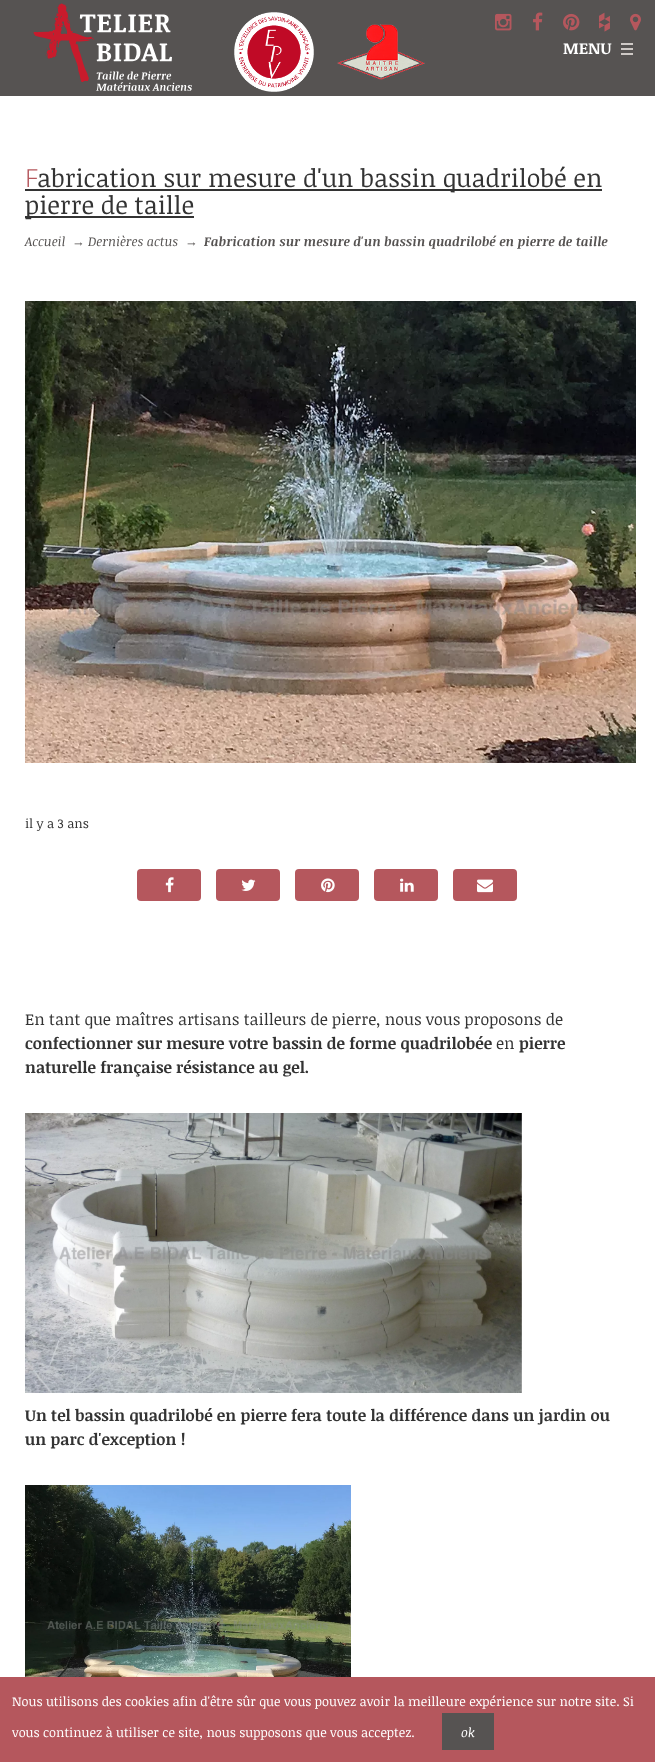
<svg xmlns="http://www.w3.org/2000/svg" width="655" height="1762">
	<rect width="100%" height="100%" fill="#FFFFFF" />
	<rect x="0" y="0" width="655" height="96" fill="#565352" />
	<image x="33" y="3" width="159" height="88" href="assets/img1.png" />
	<image x="234" y="12" width="80" height="80" href="assets/img2.png" />
	<image x="337" y="24" width="88" height="56" href="assets/img3.png" />
	<image x="495" y="13" width="17" height="18" href="assets/img4.png" />
	<image x="533" y="12" width="10" height="19" href="assets/img5.png" />
	<image x="563" y="13" width="17" height="18" href="assets/img6.png" />
	<image x="599" y="12" width="11" height="20" href="assets/img7.png" />
	<image x="630" y="13" width="11" height="18" href="assets/img8.png" />
	<text x="563" y="54" font-family="Noticia Text" font-size="16" font-weight="700" fill="#FFFFFF">MENU</text>
	<rect x="621" y="43" width="12" height="2" fill="#CEC9C6" />
	<rect x="621" y="48" width="12" height="2" fill="#CEC9C6" />
	<rect x="621" y="53" width="12" height="2" fill="#CEC9C6" />
	<text x="25" y="187" font-family="Noto Sans" font-size="25" font-weight="300" fill="#B5575D">F</text>
	<rect x="25" y="189" width="577" height="2" fill="#333333" />
	<text x="37" y="187" font-family="Noticia Text" font-size="25" fill="#333333">abrication sur mesure d'un bassin quadrilobé en</text>
	<rect x="25" y="216" width="169" height="2" fill="#333333" />
	<text x="25" y="214" font-family="Noticia Text" font-size="25" fill="#333333">pierre de taille</text>
	<text x="25" y="246" font-family="Noticia Text" font-size="12.8" font-style="italic" fill="#565352">Accueil</text>
	<text x="72" y="246" font-family="Liberation Serif" font-size="12.8" font-style="italic" fill="#565352">→</text>
	<text x="88" y="246" font-family="Noticia Text" font-size="12.8" font-style="italic" fill="#565352">Dernières actus</text>
	<text x="185" y="246" font-family="Liberation Serif" font-size="12.8" font-style="italic" fill="#565352">→</text>
	<text x="204" y="246" font-family="Noticia Text" font-size="12.8" font-weight="700" font-style="italic" fill="#565352">Fabrication sur mesure d'un bassin quadrilobé en pierre de taille</text>
	<image x="25" y="301" width="611" height="462" href="assets/img9.png" />
	<text x="25" y="828" font-family="Noticia Text" font-size="12.8" fill="#333333">il y a 3 ans</text>
	<rect x="137" y="869" width="64" height="32" rx="4" fill="#B5575D" />
	<image x="165" y="877" width="9" height="16" href="assets/img10.png" />
	<rect x="216" y="869" width="64" height="32" rx="4" fill="#B5575D" />
	<image x="241" y="879" width="15" height="12" href="assets/img11.png" />
	<rect x="295" y="869" width="64" height="32" rx="4" fill="#B5575D" />
	<image x="321" y="878" width="14" height="15" href="assets/img12.png" />
	<rect x="374" y="869" width="64" height="32" rx="4" fill="#B5575D" />
	<image x="400" y="878" width="14" height="14" href="assets/img13.png" />
	<rect x="453" y="869" width="64" height="32" rx="4" fill="#B5575D" />
	<image x="477" y="879" width="16" height="14" href="assets/img14.png" />
	<text x="25" y="1025" font-family="Noticia Text" font-size="16" fill="#333333">En tant que maîtres artisans tailleurs de pierre, nous vous proposons de</text>
	<text x="25" y="1049" font-family="Noticia Text" font-size="16" font-weight="700" fill="#333333">confectionner sur mesure votre bassin de forme quadrilobée</text>
	<text x="496" y="1049" font-family="Noticia Text" font-size="16" fill="#333333">en</text>
	<g font-family="Noticia Text" font-size="16" font-weight="700" fill="#333333">
		<text x="519" y="1049">pierre</text>
		<text x="25" y="1073">naturelle française résistance au gel.</text>
	</g>
	<image x="25" y="1113" width="497" height="280" href="assets/img15.png" />
	<g font-family="Noticia Text" font-size="16" font-weight="700" fill="#333333">
		<text x="25" y="1421">Un tel bassin quadrilobé en pierre fera toute la différence dans un jardin ou</text>
		<text x="25" y="1445">un parc d'exception !</text>
	</g>
	<image x="25" y="1485" width="326" height="192" href="assets/img16.png" />
	<rect x="0" y="1677" width="655" height="85" fill="#B5575D" />
	<g font-family="Noticia Text" font-size="12.8" fill="#FFFFFF">
		<text x="12" y="1706">Nous utilisons des cookies afin d'être sûr que vous pouvez avoir la meilleure expérience sur notre site. Si</text>
		<text x="12" y="1737">vous continuez à utiliser ce site, nous supposons que vous acceptez.</text>
	</g>
	<rect x="442" y="1713" width="52" height="37" fill="#565352" />
	<text x="461" y="1737" font-family="Noticia Text" font-size="12.8" font-style="italic" fill="#FFFFFF">ok</text>
</svg>
